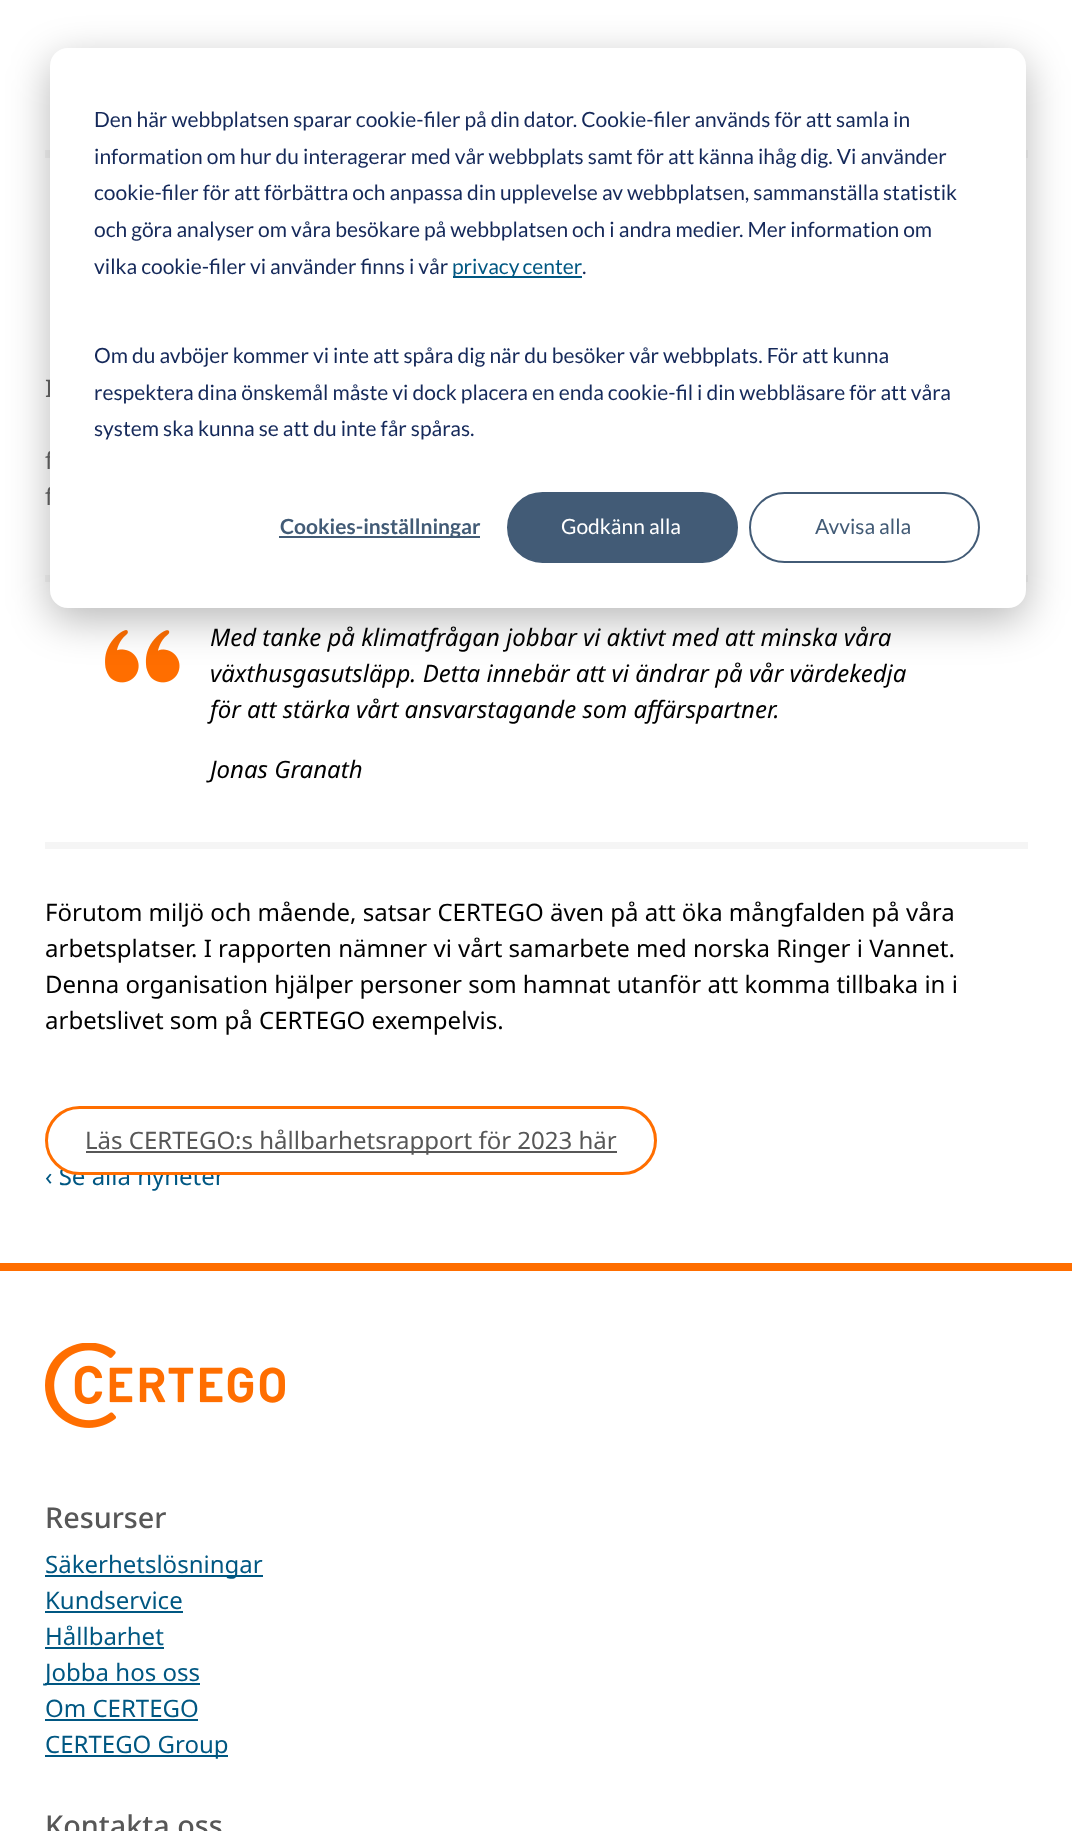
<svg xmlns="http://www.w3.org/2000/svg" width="1072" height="1831">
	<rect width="100%" height="100%" fill="#FFFFFF" />
	<rect x="45" y="150" width="983" height="8" fill="#F5F5F5" />
	<rect x="45" y="575" width="983" height="7" fill="#F5F5F5" />
	<image x="105" y="630" width="75" height="53" href="assets/img1.png" />
	<rect x="50" y="60" width="976" height="560" rx="18" fill="#000000" fill-opacity="0.28" filter="blur(21px)" />
	<g font-family="Noto Sans" font-size="24" fill="#575757">
		<text x="45" y="397">I</text>
		<text x="45" y="469">f</text>
		<text x="45" y="505">f</text>
	</g>
	<rect x="50" y="48" width="976" height="560" rx="18" fill="#FFFFFF" />
	<g font-family="Lato" font-size="21" fill="#15295A">
		<text x="94" y="127">Den här webbplatsen sparar cookie-filer på din dator. Cookie-filer används för att samla in</text>
		<text x="94" y="164">information om hur du interagerar med vår webbplats samt för att känna ihåg dig. Vi använder</text>
		<text x="94" y="200">cookie-filer för att förbättra och anpassa din upplevelse av webbplatsen, sammanställa statistik</text>
		<text x="94" y="237">och göra analyser om våra besökare på webbplatsen och i andra medier. Mer information om</text>
		<text x="94" y="274">vilka cookie-filer vi använder finns i vår</text>
	</g>
	<rect x="453" y="276" width="129" height="2" fill="#005782" />
	<text x="452" y="274" word-spacing="-1" font-family="Lato" font-size="21" fill="#005782">privacy center</text>
	<g font-family="Lato" font-size="21" fill="#15295A">
		<text x="582" y="274">.</text>
		<text x="94" y="363">Om du avböjer kommer vi inte att spåra dig när du besöker vår webbplats. För att kunna</text>
		<text x="94" y="400">respektera dina önskemål måste vi dock placera en enda cookie-fil i din webbläsare för att våra</text>
		<text x="94" y="436">system ska kunna se att du inte får spåras.</text>
	</g>
	<rect x="279" y="536" width="201" height="2" fill="#425B76" />
	<text x="280" y="534" font-family="Lato" font-size="21" font-weight="700" fill="#425B76">Cookies-inställningar</text>
	<rect x="508" y="493" width="229" height="69" rx="34.5" fill="#425B76" stroke="#425B76" stroke-width="2" />
	<text x="561" y="534" font-family="Lato" font-size="21" fill="#FFFFFF">Godkänn alla</text>
	<rect x="750" y="493" width="229" height="69" rx="34.5" fill="none" stroke="#425B76" stroke-width="2" />
	<text x="815" y="534" font-family="Lato" font-size="21" fill="#425B76">Avvisa alla</text>
	<rect x="45" y="842" width="983" height="7" fill="#F5F5F5" />
	<g font-family="Noto Sans" font-size="24" font-style="italic" fill="#000000">
		<text x="210" y="646">Med tanke på klimatfrågan jobbar vi aktivt med att minska våra</text>
		<text x="210" y="682">växthusgasutsläpp. Detta innebär att vi ändrar på vår värdekedja</text>
		<text x="210" y="718">för att stärka vårt ansvarstagande som affärspartner.</text>
		<text x="210" y="778">Jonas Granath</text>
	</g>
	<g font-family="Noto Sans" font-size="24" fill="#000000">
		<text x="45" y="921">Förutom miljö och mående, satsar CERTEGO även på att öka mångfalden på våra</text>
		<text x="45" y="957">arbetsplatser. I rapporten nämner vi vårt samarbete med norska Ringer i Vannet.</text>
		<text x="45" y="993">Denna organisation hjälper personer som hamnat utanför att komma tillbaka in i</text>
		<text x="45" y="1029">arbetslivet som på CERTEGO exempelvis.</text>
	</g>
	<text x="45" y="1185" font-family="Noto Sans" font-size="24" fill="#005782">‹ Se alla nyheter</text>
	<rect x="46.5" y="1107.5" width="609" height="66" rx="33" fill="#FFFFFF" stroke="#FF6E00" stroke-width="3" />
	<rect x="86" y="1151" width="531" height="2" fill="#575757" />
	<text x="85" y="1149" font-family="Noto Sans" font-size="24" fill="#575757">Läs CERTEGO:s hållbarhetsrapport för 2023 här</text>
	<rect x="0" y="1263" width="1072" height="8" fill="#FF6E00" />
	<image x="45" y="1343" width="240" height="85" href="assets/img2.png" />
	<text x="45" y="1528" font-family="Noto Sans" font-size="28.75" font-weight="500" fill="#575757">Resurser</text>
	<rect x="45" y="1575" width="218" height="2" fill="#005782" />
	<g font-family="Noto Sans" font-size="24" fill="#005782">
		<text x="45" y="1573">Säkerhetslösningar</text>
		<text x="45" y="1609">Kundservice</text>
	</g>
	<rect x="45" y="1611" width="138" height="2" fill="#005782" />
	<text x="45" y="1645" font-family="Noto Sans" font-size="24" fill="#005782">Hållbarhet</text>
	<rect x="45" y="1647" width="119" height="2" fill="#005782" />
	<rect x="45" y="1683" width="155" height="2" fill="#005782" />
	<g font-family="Noto Sans" font-size="24" fill="#005782">
		<text x="45" y="1681">Jobba hos oss</text>
		<text x="45" y="1717">Om CERTEGO</text>
	</g>
	<rect x="45" y="1719" width="153" height="2" fill="#005782" />
	<rect x="45" y="1755" width="183" height="2" fill="#005782" />
	<text x="45" y="1753" font-family="Noto Sans" font-size="24" fill="#005782">CERTEGO Group</text>
	<text x="45" y="1836" font-family="Noto Sans" font-size="28.75" font-weight="500" fill="#575757">Kontakta oss</text>
</svg>
